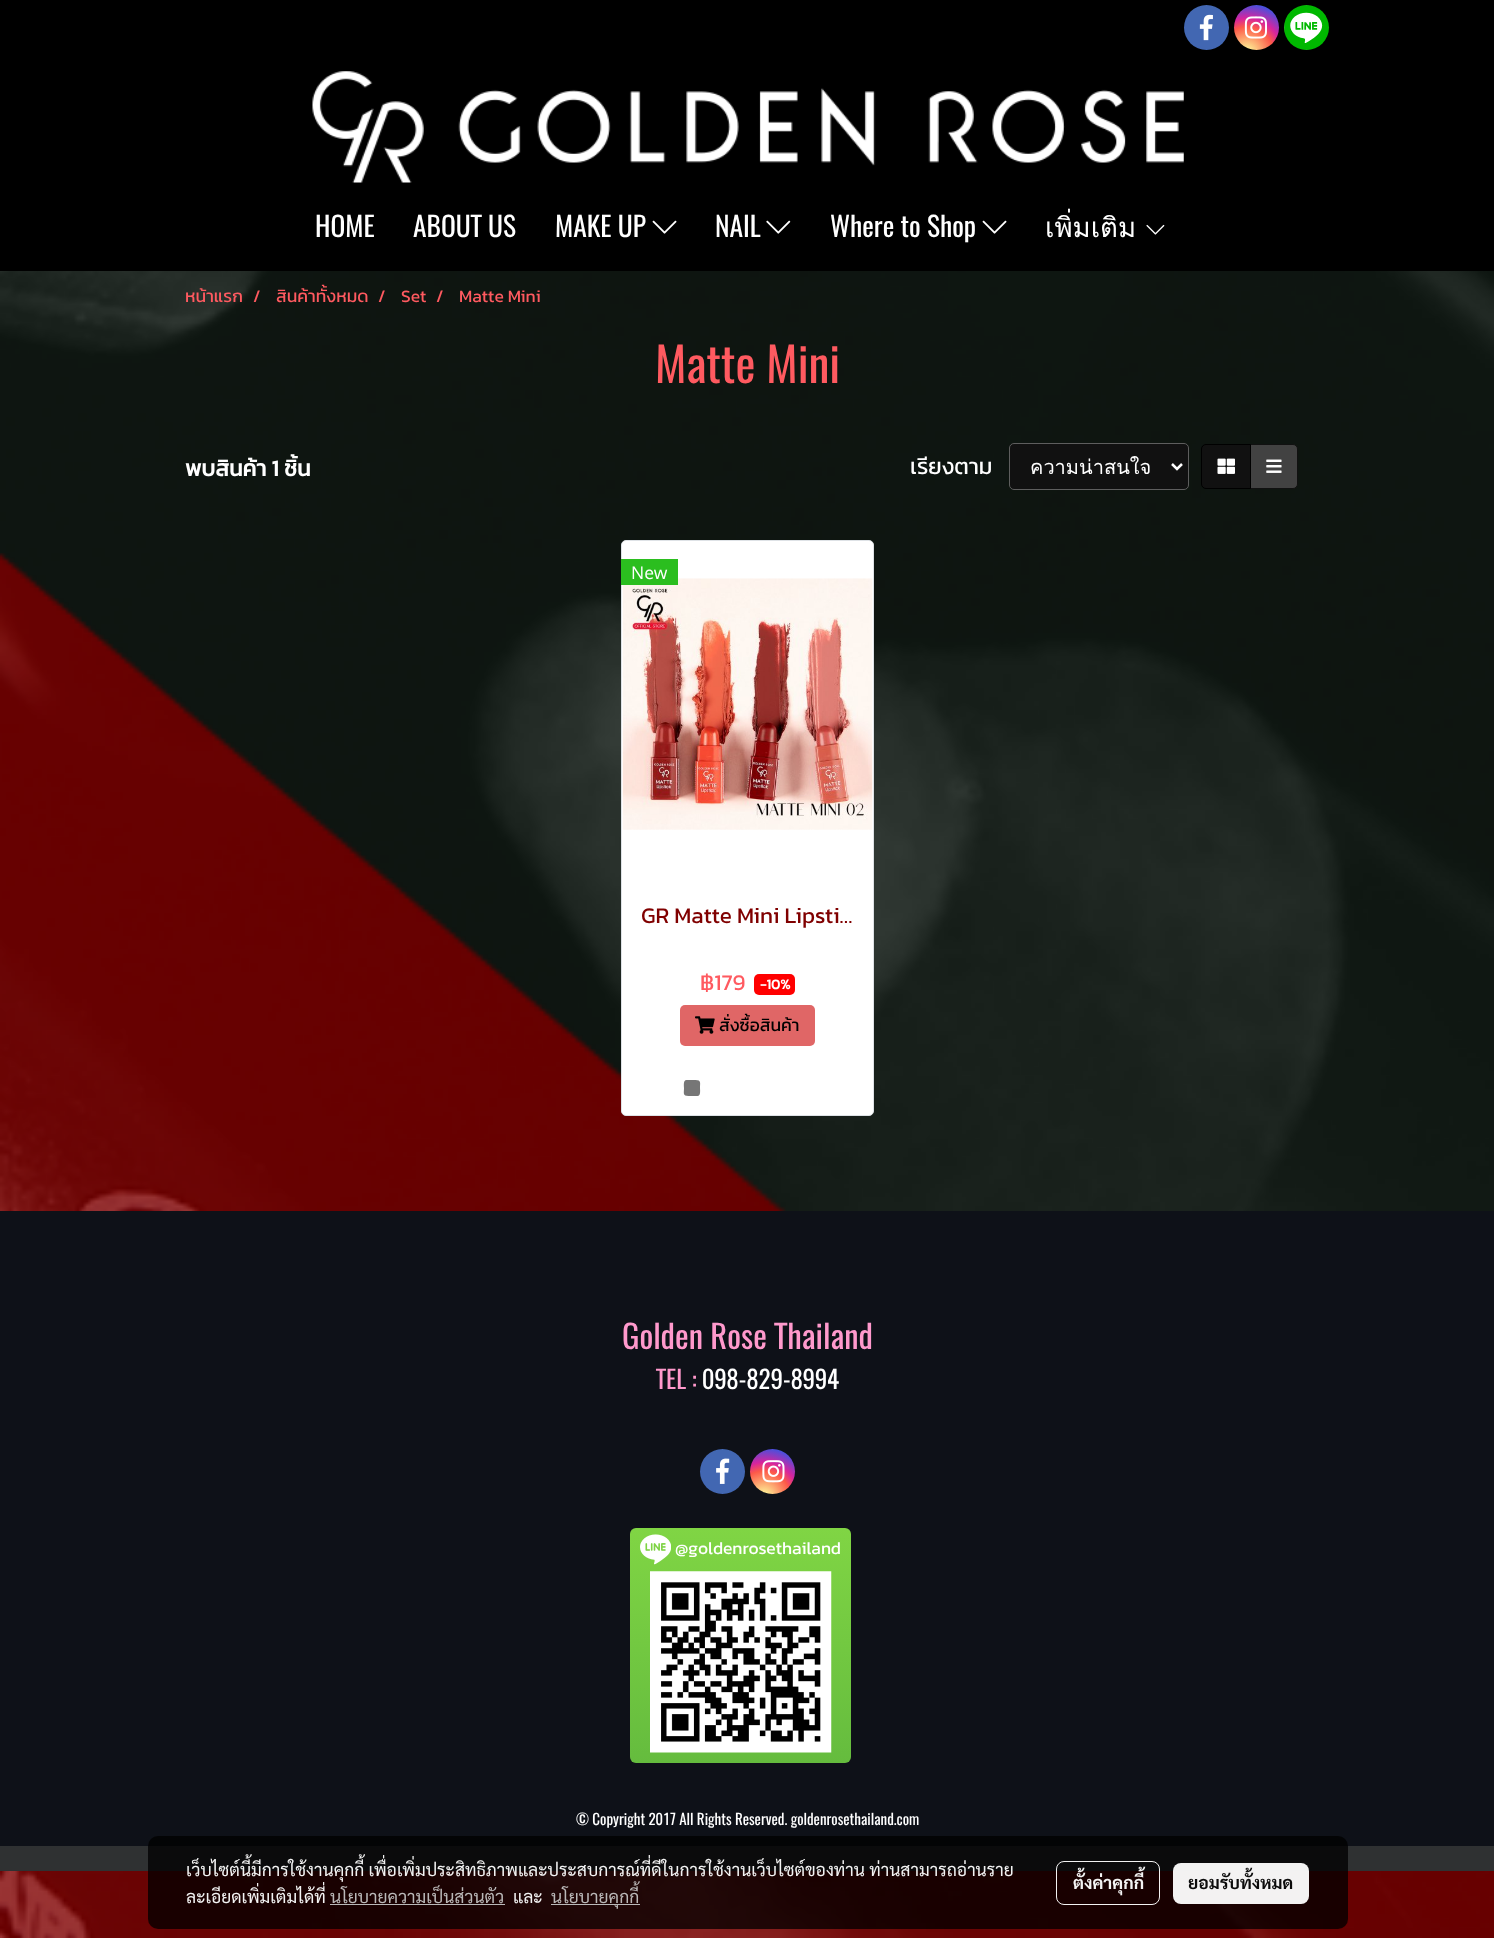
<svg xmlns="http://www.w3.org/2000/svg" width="1494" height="1938">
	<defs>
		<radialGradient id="g1" gradientUnits="userSpaceOnUse" cx="1247" cy="53" r="58"><stop offset="0" stop-color="#FDF497" /><stop offset="0.05" stop-color="#FDF497" /><stop offset="0.45" stop-color="#FD5949" /><stop offset="0.6" stop-color="#D6249F" /><stop offset="0.9" stop-color="#285AEB" /></radialGradient>
		<radialGradient id="g2" gradientUnits="userSpaceOnUse" cx="764" cy="1497" r="58"><stop offset="0" stop-color="#FDF497" /><stop offset="0.05" stop-color="#FDF497" /><stop offset="0.45" stop-color="#FD5949" /><stop offset="0.6" stop-color="#D6249F" /><stop offset="0.9" stop-color="#285AEB" /></radialGradient>
		<linearGradient id="g3" gradientUnits="userSpaceOnUse" x1="741" y1="1528" x2="741" y2="1763"><stop offset="0" stop-color="#80D544" /><stop offset="1" stop-color="#65BC3E" /></linearGradient>
	</defs>
	<rect width="100%" height="100%" fill="#FFFFFF" />
	<image x="0" y="271" width="1494" height="1667" href="assets/img1.png" />
	<rect x="0" y="0" width="1494" height="271" fill="#000000" />
	<circle cx="1206.5" cy="27.5" r="22.5" fill="#4267B2" />
	<image x="1199" y="14" width="14" height="27" href="assets/img2.png" />
	<circle cx="1256.5" cy="27.5" r="22.5" fill="url(#g1)" />
	<image x="1244" y="16" width="23" height="23" href="assets/img3.png" />
	<circle cx="1306.5" cy="27.5" r="22.5" fill="#00B800" />
	<image x="1284" y="5" width="39" height="45" href="assets/img4.png" />
	<image x="312" y="71" width="872" height="112" href="assets/img5.png" />
	<g font-family="Oswald" font-size="27.5" fill="#FFFFFF">
		<text x="315" y="237">HOME</text>
		<text x="413" y="237">ABOUT US</text>
		<text x="555" y="237">MAKE UP</text>
	</g>
	<image x="652" y="220" width="25" height="14" href="assets/img6.png" />
	<text x="715" y="237" font-family="Oswald" font-size="27.5" fill="#FFFFFF">NAIL</text>
	<image x="766" y="220" width="25" height="14" href="assets/img7.png" />
	<text x="830" y="237" font-family="Oswald" font-size="27.5" fill="#FFFFFF">Where to Shop</text>
	<image x="982" y="220" width="25" height="14" href="assets/img6.png" />
	<text x="1045" y="237" font-family="Loma" font-size="27.5" fill="#FFFFFF">เพิ่มเติม</text>
	<image x="1146" y="224" width="19" height="11" href="assets/img8.png" />
	<g font-family="Kanit" font-size="17.5" fill="#FF5A60">
		<text x="185" y="302">หน้าแรก</text>
		<text x="253" y="302">/</text>
		<text x="276" y="302">สินค้าทั้งหมด</text>
		<text x="378" y="302">/</text>
		<text x="401" y="302">Set</text>
		<text x="436" y="302">/</text>
		<text x="459" y="302">Matte Mini</text>
	</g>
	<text x="655" y="383" font-family="Oswald" font-size="47.5" fill="#FF5A60">Matte Mini</text>
	<text x="185" y="476" font-family="Kanit" font-size="22.5" font-weight="700" fill="#FFFFFF">พบสินค้า 1 ชิ้น</text>
	<text x="910" y="474" font-family="Kanit" font-size="22.5" fill="#FFFFFF">เรียงตาม</text>
	<rect x="1009.5" y="443.5" width="179" height="46" rx="4.5" fill="#111111" stroke="#5E5E5E" />
	<path d="M1172 464L1177 469L1182 464" fill="none" stroke="#FFFFFF" stroke-width="2.5" />
	<text x="1030" y="474" font-family="Loma" font-size="20" fill="#FFFFFF">ความน่าสนใจ</text>
	<path d="M1250.5 444.5H1293C1295.5 444.5 1297.5 446.5 1297.5 449V484C1297.5 486.5 1295.5 488.5 1293 488.5H1250.5Z" fill="#424242" stroke="#111111" />
	<path d="M1206 444.5H1250.5V488.5H1206C1203.5 488.5 1201.5 486.5 1201.5 484V449C1201.5 446.5 1203.5 444.5 1206 444.5Z" fill="#111111" stroke="#000000" />
	<image x="1217" y="458" width="18" height="16" href="assets/img9.png" />
	<image x="1266" y="459" width="16" height="14" href="assets/img10.png" />
	<rect x="621.5" y="540.5" width="252" height="575" rx="4.5" fill="#FFFFFF" stroke="#DEE2E6" />
	<image x="622" y="578" width="251" height="252" href="assets/img11.png" />
	<rect x="621" y="559" width="57" height="26" fill="#2BBE1F" />
	<text x="631" y="579" font-family="Open Sans" font-size="17.5" fill="#FFFFFF">New</text>
	<text x="641" y="923" font-family="Kanit" font-size="22.5" fill="#800000">GR Matte Mini Lipsti…</text>
	<text x="700" y="990" font-family="Kanit" font-size="22.5" fill="#FF5A60">฿179</text>
	<rect x="754" y="974" width="41" height="21" rx="5" fill="#FF0000" />
	<text x="760" y="989" font-family="Kanit" font-size="14" font-weight="700" fill="#FFFFFF">-10%</text>
	<rect x="680" y="1005" width="135" height="41" rx="5" fill="#E06666" />
	<text x="719" y="1031" font-family="Kanit" font-size="17.5" fill="#000000">สั่งซื้อสินค้า</text>
	<image x="695" y="1016" width="20" height="18" href="assets/img12.png" />
	<path d="M686.5 1080H695.5C701.5 1080 700 1083 700 1088C700 1090 701 1096 697.5 1096H688.5C682.5 1096 684 1093 684 1088C684 1086 683 1080 686.5 1080Z" fill="#767676" />
	<rect x="0" y="1211" width="1494" height="635" fill="#0E1118" />
	<text x="622" y="1349" font-family="Oswald" font-size="32.5" fill="#FF99CC">Golden Rose Thailand</text>
	<text x="656" y="1389" font-family="Oswald" font-size="25" fill="#FF99CC">TEL :</text>
	<text x="702" y="1389" font-family="Oswald" font-size="25" fill="#FFFFFF">098-829-8994</text>
	<circle cx="722.5" cy="1471.5" r="22.5" fill="#4267B2" />
	<image x="716" y="1458" width="14" height="26" href="assets/img13.png" />
	<circle cx="772.5" cy="1471.5" r="22.5" fill="url(#g2)" />
	<image x="762" y="1460" width="23" height="23" href="assets/img14.png" />
	<rect x="630" y="1528" width="221" height="235" rx="6" fill="url(#g3)" />
	<image x="640" y="1534" width="31" height="31" href="assets/img15.png" />
	<text x="675" y="1554" font-family="Kanit" font-size="17.5" fill="#FFFFFF">@goldenrosethailand</text>
	<image x="650" y="1571" width="182" height="182" href="assets/img16.png" />
	<text x="576" y="1825" font-family="Oswald" font-size="15" fill="#FFFFFF">© Copyright 2017 All Rights Reserved. goldenrosethailand.com</text>
	<rect x="0" y="1846" width="1494" height="25" fill="#2F3132" />
	<rect x="148" y="1836" width="1200" height="93" rx="10" fill="#000000" fill-opacity="0.76" />
	<g font-family="Sarabun" font-size="17.5" fill="#F3F3F3">
		<text x="186" y="1876">เว็บไซต์นี้มีการใช้งานคุกกี้ เพื่อเพิ่มประสิทธิภาพและประสบการณ์ที่ดีในการใช้งานเว็บไซต์ของท่าน ท่านสามารถอ่านราย</text>
		<text x="186" y="1903">ละเอียดเพิ่มเติมได้ที่</text>
	</g>
	<text x="330" y="1903" font-family="Sarabun" font-size="17.5" fill="#BAB8B8">นโยบายความเป็นส่วนตัว</text>
	<rect x="330" y="1904" width="175" height="1" fill="#C2C2C2" fill-opacity="0.95" />
	<text x="513" y="1903" font-family="Sarabun" font-size="17.5" fill="#F3F3F3">และ</text>
	<rect x="551" y="1904" width="89" height="1" fill="#BAB9B9" />
	<text x="551" y="1903" font-family="Sarabun" font-size="17.5" fill="#BAB8B8">นโยบายคุกกี้</text>
	<rect x="1056.5" y="1861.5" width="103" height="43" rx="7.5" fill="none" stroke="#FFFFFF" stroke-opacity="0.95" />
	<text x="1073" y="1889" font-family="Sarabun" font-size="17.5" font-weight="700" fill="#F3F3F3">ตั้งค่าคุกกี้</text>
	<rect x="1173" y="1863" width="136" height="41" rx="8" fill="#FFFFFF" fill-opacity="0.95" />
	<text x="1188" y="1889" font-family="Sarabun" font-size="17.5" font-weight="700" fill="#0C0C0C">ยอมรับทั้งหมด</text>
</svg>
